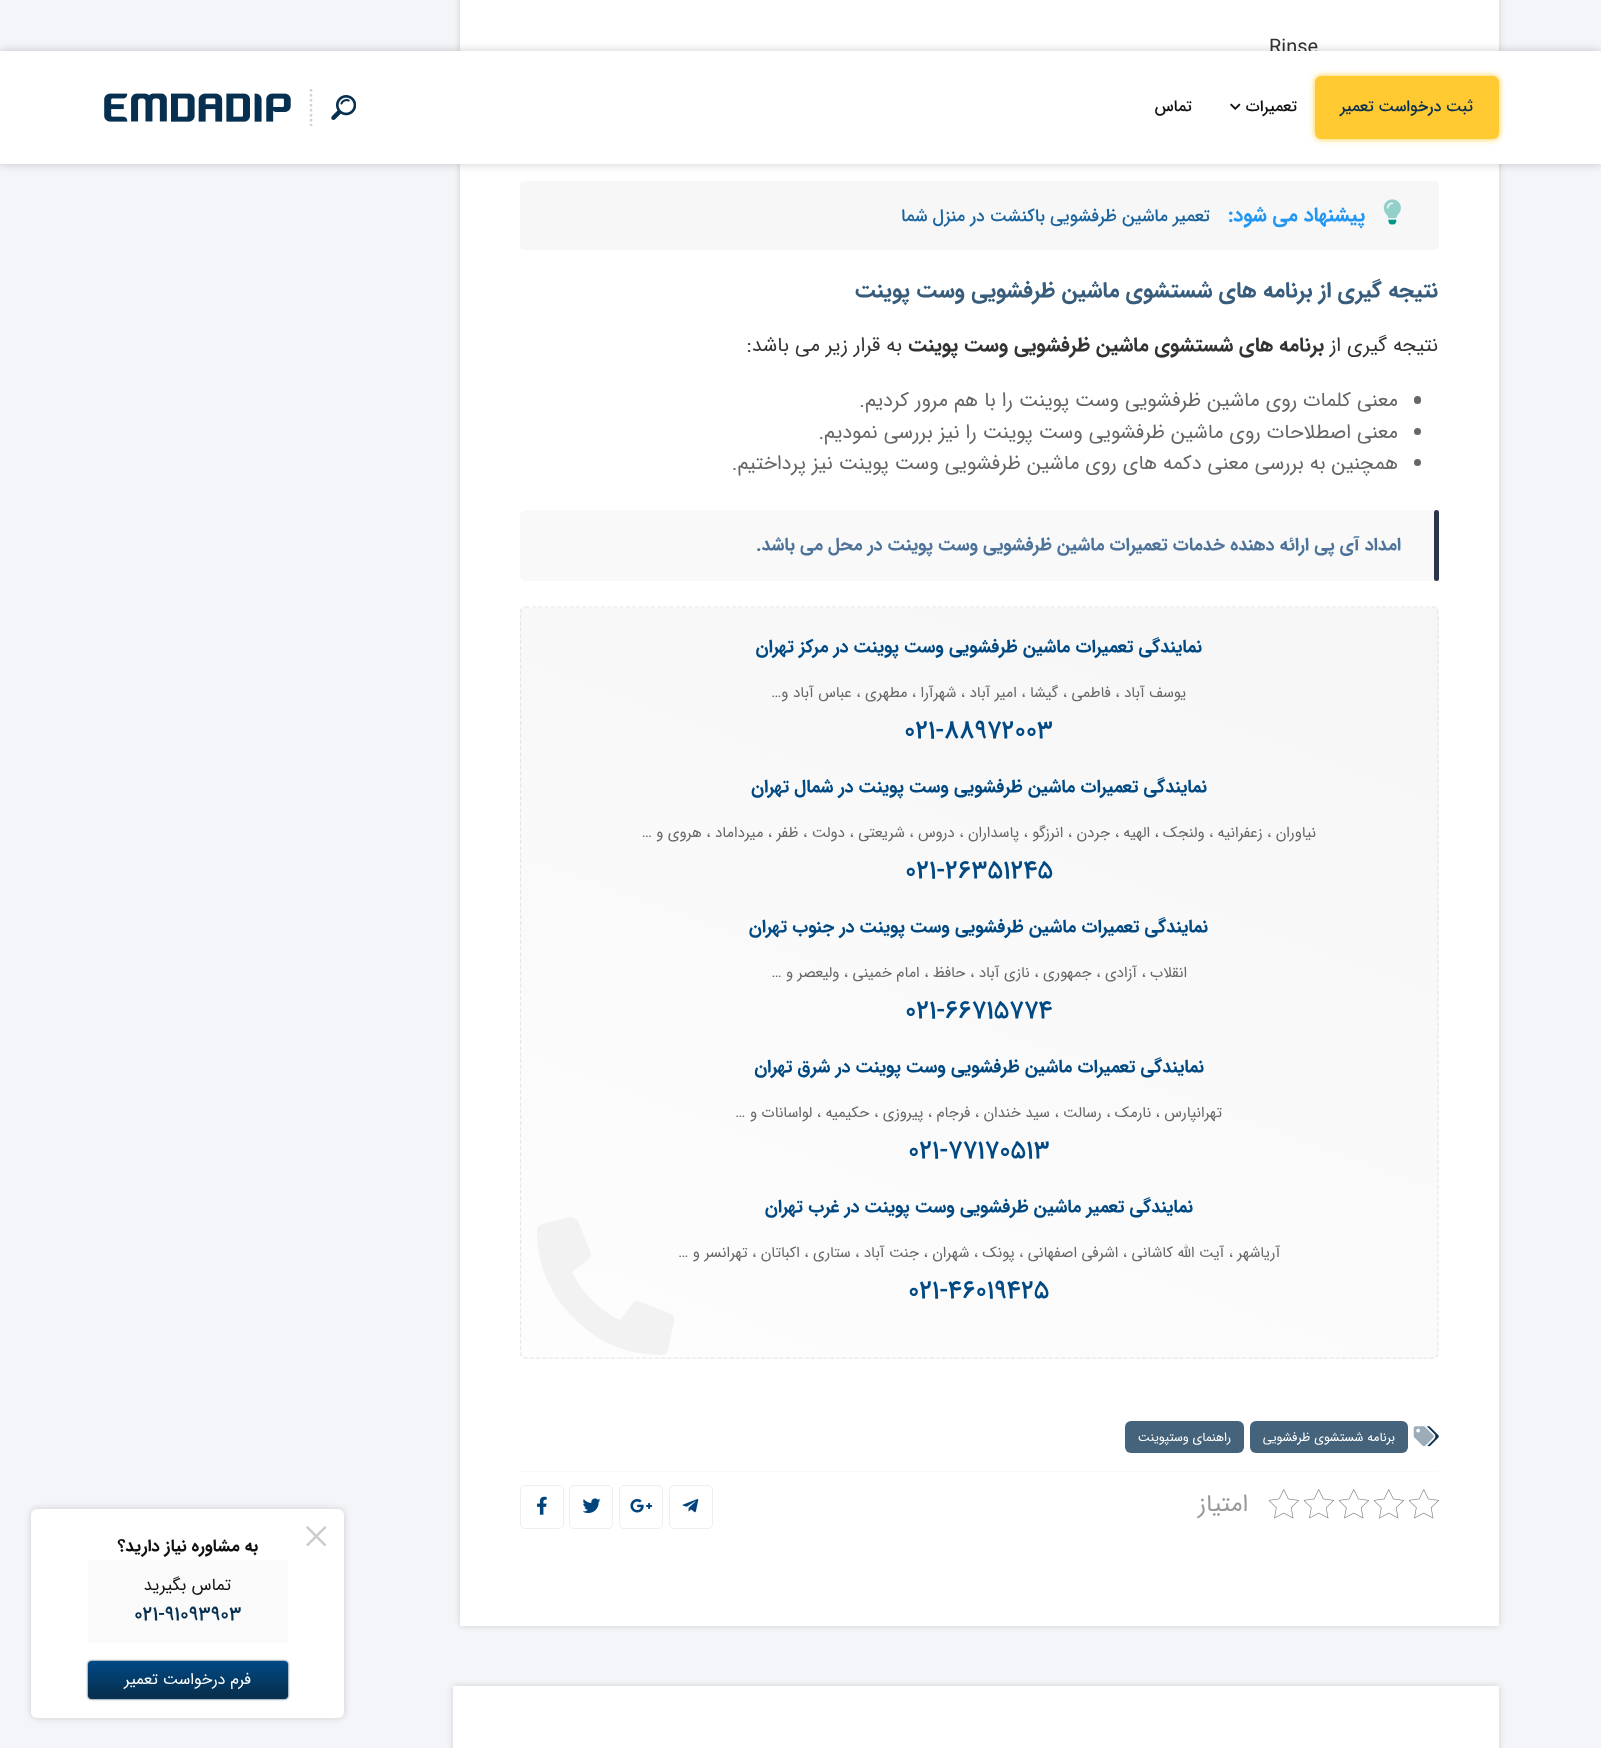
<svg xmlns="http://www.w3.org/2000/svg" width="1601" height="1748">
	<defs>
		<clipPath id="clip1"><rect x="520" y="606" width="919" height="753" rx="6" /></clipPath>
		<linearGradient id="g1" gradientUnits="userSpaceOnUse" x1="805" y1="711" x2="1153" y2="-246"><stop offset="0" stop-color="#FDFDFD" /><stop offset="1" stop-color="#F6F6F6" /></linearGradient>
		<linearGradient id="g2" gradientUnits="userSpaceOnUse" x1="-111" y1="1461" x2="237" y2="504"><stop offset="0" stop-color="#FDFDFD" /><stop offset="1" stop-color="#F6F6F6" /></linearGradient>
		<linearGradient id="g3" gradientUnits="userSpaceOnUse" x1="805" y1="1461" x2="1153" y2="504"><stop offset="0" stop-color="#FDFDFD" /><stop offset="1" stop-color="#F6F6F6" /></linearGradient>
		<linearGradient id="g4" gradientUnits="userSpaceOnUse" x1="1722" y1="1461" x2="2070" y2="504"><stop offset="0" stop-color="#FDFDFD" /><stop offset="1" stop-color="#F6F6F6" /></linearGradient>
		<linearGradient id="g5" gradientUnits="userSpaceOnUse" x1="805" y1="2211" x2="1153" y2="1254"><stop offset="0" stop-color="#FDFDFD" /><stop offset="1" stop-color="#F6F6F6" /></linearGradient>
		<linearGradient id="g6" gradientUnits="userSpaceOnUse" x1="188" y1="1699" x2="188" y2="1661"><stop offset="0.1" stop-color="#072F4F" /><stop offset="1" stop-color="#004A86" /></linearGradient>
	</defs>
	<rect width="100%" height="100%" fill="#F4F5F9" />
	<rect x="460" y="-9" width="1039" height="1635" fill="#666666" fill-opacity="0.25" filter="blur(3px)" />
	<rect x="460" y="0" width="1039" height="1626" fill="#FFFFFF" />
	<text x="1269" y="53" font-family="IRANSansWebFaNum" font-size="20" fill="#333333">Rinse</text>
	<rect x="520" y="181" width="919" height="69" rx="4" fill="#F7F7F7" />
	<image x="1383" y="199" width="18" height="20" href="assets/img1.png" />
	<image x="1388" y="219" width="9" height="6" href="assets/img2.png" />
	<text x="1365" y="221" font-family="IRANSansWebFaNum" font-size="20" font-weight="700" direction="rtl" fill="#2196F3">پیشنهاد می شود:</text>
	<text x="1210" y="221" font-family="IRANSansWebFaNum" font-size="17.5" font-weight="500" direction="rtl" fill="#1A649F">تعمیر ماشین ظرفشویی باکنشت در منزل شما</text>
	<text x="1438" y="297" font-family="IRANSansWebFaNum" font-size="22" font-weight="700" direction="rtl" fill="#385C7B">نتیجه گیری از برنامه های شستشوی ماشین ظرفشویی وست پوینت</text>
	<text x="1438" y="351" font-family="IRANSansWebFaNum" font-size="20" direction="rtl" fill="#333333">نتیجه گیری از</text>
	<text x="1324" y="351" font-family="IRANSansWebFaNum" font-size="20" font-weight="700" direction="rtl" fill="#333333">برنامه های شستشوی ماشین ظرفشویی وست پوینت</text>
	<text x="902" y="351" font-family="IRANSansWebFaNum" font-size="20" direction="rtl" fill="#333333">به قرار زیر می باشد:</text>
	<rect x="1414" y="396" width="7" height="8" rx="3.5" fill="#666666" />
	<text x="1398" y="406" font-family="IRANSansWebFaNum" font-size="20" direction="rtl" fill="#666666">معنی کلمات روی ماشین ظرفشویی وست پوینت را با هم مرور کردیم.</text>
	<circle cx="1417.5" cy="431.5" r="3.5" fill="#666666" />
	<text x="1398" y="438" font-family="IRANSansWebFaNum" font-size="20" direction="rtl" fill="#666666">معنی اصطلاحات روی ماشین ظرفشویی وست پوینت را نیز بررسی نمودیم.</text>
	<circle cx="1417.5" cy="462.5" r="3.5" fill="#666666" />
	<text x="1398" y="469" font-family="IRANSansWebFaNum" font-size="20" direction="rtl" fill="#666666">همچنین به بررسی معنی دکمه های روی ماشین ظرفشویی وست پوینت نیز پرداختیم.</text>
	<rect x="520" y="510" width="919" height="71" rx="6" fill="#F9F9F9" />
	<rect x="1434" y="510" width="5" height="71" rx="2.5" fill="#2C334D" />
	<text x="1401" y="550" font-family="IRANSansWebFaNum" font-size="18" font-weight="700" direction="rtl" fill="#4E739A">امداد آی پی ارائه دهنده خدمات تعمیرات ماشین ظرفشویی وست پوینت در محل می باشد.</text>
	<g clip-path="url(#clip1)">
		<rect x="521" y="606" width="917" height="2" fill="url(#g1)" />
		<rect x="520" y="608" width="1" height="750" fill="url(#g2)" />
		<rect x="521" y="608" width="917" height="750" fill="url(#g3)" />
		<rect x="1438" y="608" width="1" height="750" fill="url(#g4)" />
		<rect x="521" y="1358" width="917" height="1" fill="url(#g5)" />
	</g>
	<path d="M526 607H1432.5C1435.5 607 1438 609.5 1438 612.5V1352.5C1438 1355.5 1435.5 1358 1432.5 1358H526C523 1358 520.5 1355.5 520.5 1352.5V612.5C520.5 609.5 523 607 526 607Z" fill="none" stroke="#CCCCCC" stroke-opacity="0.43" stroke-width="1.2" stroke-dasharray="3.75 2.5" />
	<text x="1202" y="652" font-family="IRANSansWebFaNum" font-size="18" font-weight="700" direction="rtl" fill="#014983">نمایندگی تعمیرات ماشین ظرفشویی وست پوینت در مرکز تهران</text>
	<text x="1186" y="697" font-family="IRANSansWebFaNum" font-size="15" direction="rtl" fill="#666666">یوسف آباد ، فاطمی ، گیشا ، امیر آباد ، شهرآرا ، مطهری ، عباس آباد و…</text>
	<text x="904" y="738" font-family="IRANSansWebFaNum" font-size="26" font-weight="500" fill="#014983">021-88972003</text>
	<text x="1207" y="792" font-family="IRANSansWebFaNum" font-size="18" font-weight="700" direction="rtl" fill="#014983">نمایندگی تعمیرات ماشین ظرفشویی وست پوینت در شمال تهران</text>
	<text x="1316" y="837" font-family="IRANSansWebFaNum" font-size="15" direction="rtl" fill="#666666">نیاوران ، زعفرانیه ، ولنجک ، الهیه ، جردن ، انرزگو ، پاسداران ، دروس ، شریعتی ، دولت ، ظفر ، میرداماد ، هروی و …</text>
	<text x="905" y="878" font-family="IRANSansWebFaNum" font-size="26" font-weight="500" fill="#014983">021-26351245</text>
	<text x="1208" y="932" font-family="IRANSansWebFaNum" font-size="18" font-weight="700" direction="rtl" fill="#014983">نمایندگی تعمیرات ماشین ظرفشویی وست پوینت در جنوب تهران</text>
	<text x="1187" y="977" font-family="IRANSansWebFaNum" font-size="15" direction="rtl" fill="#666666">انقلاب ، آزادی ، جمهوری ، نازی آباد ، حافظ ، امام خمینی ، ولیعصر و …</text>
	<text x="905" y="1018" font-family="IRANSansWebFaNum" font-size="26" font-weight="500" fill="#014983">021-66715774</text>
	<text x="1204" y="1072" font-family="IRANSansWebFaNum" font-size="18" font-weight="700" direction="rtl" fill="#014983">نمایندگی تعمیرات ماشین ظرفشویی وست پوینت در شرق تهران</text>
	<text x="1222" y="1117" font-family="IRANSansWebFaNum" font-size="15" direction="rtl" fill="#666666">تهرانپارس ، نارمک ، رسالت ، سید خندان ، فرجام ، پیروزی ، حکیمیه ، لواسانات و …</text>
	<text x="908" y="1158" font-family="IRANSansWebFaNum" font-size="26" font-weight="500" fill="#014983">021-77170513</text>
	<text x="1193" y="1212" font-family="IRANSansWebFaNum" font-size="18" font-weight="700" direction="rtl" fill="#014983">نمایندگی تعمیر ماشین ظرفشویی وست پوینت در غرب تهران</text>
	<text x="1280" y="1257" font-family="IRANSansWebFaNum" font-size="15" direction="rtl" fill="#666666">آریاشهر ، آیت الله کاشانی ، اشرفی اصفهانی ، پونک ، شهران ، جنت آباد ، ستاری ، اکباتان ، تهرانسر و …</text>
	<text x="908" y="1298" font-family="IRANSansWebFaNum" font-size="26" font-weight="500" fill="#014983">021-46019425</text>
	<path d="M542 1224C539 1225 537 1227 537 1230C537 1264 549 1294 574 1318C598 1343 627 1355 662 1355C665 1355 667 1353 668 1350L674 1322C675 1318 674 1316 671 1314L641 1302C638 1300 635 1301 633 1303L620 1320C599 1310 582 1293 572 1272L589 1259C591 1257 592 1254 590 1251L578 1221C576 1218 574 1217 570 1217Z" fill="#F2F2F2" />
	<image x="1426" y="1426" width="13" height="21" href="assets/img4.png" />
	<image x="1413" y="1426" width="21" height="21" href="assets/img3.png" />
	<rect x="1250" y="1421" width="158" height="32" rx="6" fill="#45637B" />
	<text x="1395" y="1441" font-family="IRANSansWebFaNum" font-size="12.5" direction="rtl" fill="#FFFFFF">برنامه شستشوی ظرفشویی</text>
	<rect x="1125" y="1421" width="119" height="32" rx="6" fill="#45637B" />
	<text x="1231" y="1441" font-family="IRANSansWebFaNum" font-size="12.5" direction="rtl" fill="#FFFFFF">راهنمای وستپوینت</text>
	<rect x="520" y="1471" width="919" height="1" fill="#F9F9F9" />
	<image x="1409" y="1489" width="30" height="30" href="assets/img5.png" />
	<image x="1374" y="1489" width="30" height="30" href="assets/img5.png" />
	<image x="1339" y="1489" width="30" height="30" href="assets/img5.png" />
	<image x="1304" y="1489" width="30" height="30" href="assets/img5.png" />
	<image x="1269" y="1489" width="30" height="30" href="assets/img5.png" />
	<text x="1248" y="1511" font-family="IRANSansWebFaNum" font-size="24" direction="rtl" fill="#999999">امتیاز</text>
	<rect x="669.5" y="1485.5" width="43" height="43" rx="4.5" fill="none" stroke="#EEEEEE" />
	<image x="682" y="1499" width="17" height="14" href="assets/img6.png" />
	<rect x="619.5" y="1485.5" width="43" height="43" rx="4.5" fill="none" stroke="#EEEEEE" />
	<image x="630" y="1499" width="23" height="14" href="assets/img7.png" />
	<rect x="569.5" y="1485.5" width="43" height="43" rx="4.5" fill="none" stroke="#EEEEEE" />
	<image x="582" y="1498" width="19" height="16" href="assets/img8.png" />
	<rect x="520.5" y="1485.5" width="43" height="43" rx="4.5" fill="none" stroke="#EEEEEE" />
	<image x="537" y="1496" width="10" height="19" href="assets/img9.png" />
	<rect x="0" y="51" width="1601" height="113" fill="#000000" fill-opacity="0.2" filter="blur(5px)" />
	<rect x="0" y="51" width="1601" height="113" fill="#FFFFFF" />
	<rect x="1315" y="76" width="184" height="63" rx="6" fill="#FFC931" filter="blur(3px)" />
	<rect x="1315" y="76" width="184" height="63" rx="6" fill="#FFC931" />
	<text x="1473" y="111" font-family="IRANSansWebFaNum" font-size="16" font-weight="500" direction="rtl" fill="#072F4F">ثبت درخواست تعمیر</text>
	<text x="1297" y="111" font-family="IRANSansWebFaNum" font-size="16" font-weight="500" direction="rtl" fill="#111111">تعمیرات</text>
	<image x="1230" y="103" width="11" height="7" href="assets/img10.png" />
	<text x="1192" y="111" font-family="IRANSansWebFaNum" font-size="16" font-weight="500" direction="rtl" fill="#111111">تماس</text>
	<path d="M311 89V126" fill="none" stroke="#D4D2D2" stroke-width="2.5" stroke-dasharray="2.5 2.5" />
	<image x="331" y="95" width="25" height="25" href="assets/img11.png" />
	<image x="104" y="93" width="187" height="29" href="assets/img12.png" />
	<rect x="31" y="1509" width="313" height="209" rx="6" fill="#CCCCCC" filter="blur(3px)" />
	<rect x="31" y="1509" width="313" height="209" rx="6" fill="#FFFFFF" />
	<image x="306" y="1526" width="20" height="20" href="assets/img13.png" />
	<text x="258" y="1551" font-family="IRANSansWebFaNum" font-size="17" font-weight="700" direction="rtl" fill="#111111">به مشاوره نیاز دارید؟</text>
	<rect x="88" y="1560" width="200" height="83" fill="#FAFAFA" />
	<text x="231" y="1590" font-family="IRANSansWebFaNum" font-size="17" direction="rtl" fill="#111111">تماس بگیرید</text>
	<text x="134" y="1620" font-family="IRANSansWebFaNum" font-size="20" font-weight="500" fill="#072F4F">021-91093903</text>
	<rect x="88" y="1661" width="200" height="38" rx="4" fill="#072F4F" filter="blur(1px)" />
	<rect x="88" y="1661" width="200" height="38" rx="4" fill="url(#g6)" />
	<text x="251" y="1684" font-family="IRANSansWebFaNum" font-size="16" direction="rtl" fill="#FFFFFF">فرم درخواست تعمیر</text>
	<rect x="453" y="1686" width="1046" height="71" fill="#666666" fill-opacity="0.25" filter="blur(3px)" />
	<rect x="453" y="1686" width="1046" height="62" fill="#FFFFFF" />
</svg>
